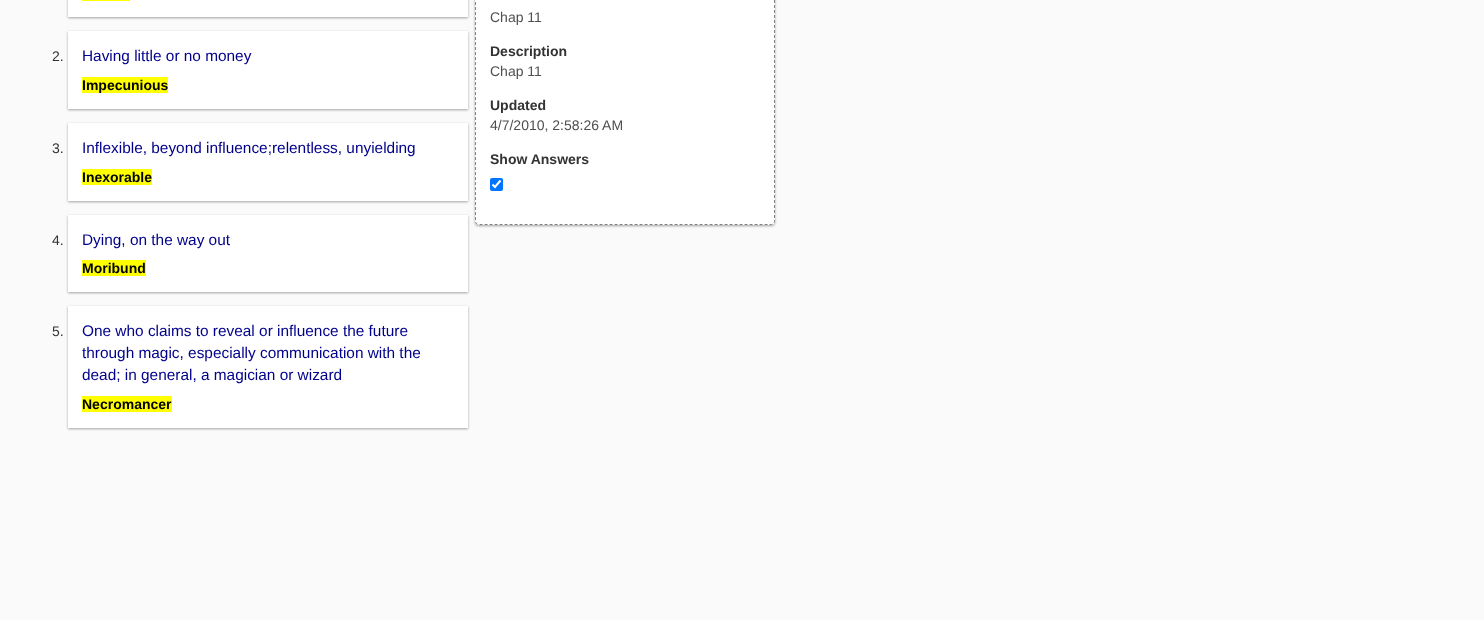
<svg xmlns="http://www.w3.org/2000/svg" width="1484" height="620">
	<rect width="100%" height="100%" fill="#FAFAFA" />
	<rect x="68" y="-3" width="400" height="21" fill="#000000" fill-opacity="0.24" filter="blur(1px)" />
	<rect x="68" y="-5" width="400" height="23" fill="#000000" fill-opacity="0.12" filter="blur(1.5px)" />
	<rect x="68" y="0" width="400" height="17" fill="#FFFFFF" />
	<rect x="82" y="0" width="48" height="1" fill="#FFFF00" />
	<rect x="68" y="32" width="400" height="78" fill="#000000" fill-opacity="0.12" filter="blur(1.5px)" />
	<text x="52" y="61" font-family="Liberation Sans" font-size="14" fill="#333333">2.</text>
	<rect x="68" y="32" width="400" height="78" fill="#000000" fill-opacity="0.24" filter="blur(1px)" />
	<rect x="68" y="31" width="400" height="78" fill="#FFFFFF" />
	<text x="82" y="61" font-family="Liberation Sans" font-size="15.4" fill="#00008B">Having little or no money</text>
	<rect x="82" y="77" width="86" height="16" fill="#FFFF00" />
	<text x="82" y="90" font-family="Liberation Sans" font-size="14" font-weight="700" fill="#000000">Impecunious</text>
	<rect x="68" y="124" width="400" height="78" fill="#000000" fill-opacity="0.12" filter="blur(1.5px)" />
	<text x="52" y="153" font-family="Liberation Sans" font-size="14" fill="#333333">3.</text>
	<rect x="68" y="124" width="400" height="78" fill="#000000" fill-opacity="0.24" filter="blur(1px)" />
	<rect x="68" y="123" width="400" height="78" fill="#FFFFFF" />
	<text x="82" y="153" font-family="Liberation Sans" font-size="15.4" fill="#00008B">Inflexible, beyond influence;relentless, unyielding</text>
	<rect x="82" y="169" width="70" height="16" fill="#FFFF00" />
	<text x="82" y="182" font-family="Liberation Sans" font-size="14" font-weight="700" fill="#000000">Inexorable</text>
	<rect x="68" y="216" width="400" height="77" fill="#000000" fill-opacity="0.12" filter="blur(1.5px)" />
	<text x="52" y="245" font-family="Liberation Sans" font-size="14" fill="#333333">4.</text>
	<rect x="68" y="216" width="400" height="77" fill="#000000" fill-opacity="0.24" filter="blur(1px)" />
	<rect x="68" y="215" width="400" height="77" fill="#FFFFFF" />
	<text x="82" y="245" font-family="Liberation Sans" font-size="15.4" fill="#00008B">Dying, on the way out</text>
	<rect x="82" y="260" width="64" height="16" fill="#FFFF00" />
	<text x="82" y="273" font-family="Liberation Sans" font-size="14" font-weight="700" fill="#000000">Moribund</text>
	<rect x="68" y="307" width="400" height="122" fill="#000000" fill-opacity="0.12" filter="blur(1.5px)" />
	<text x="52" y="336" font-family="Liberation Sans" font-size="14" fill="#333333">5.</text>
	<rect x="68" y="307" width="400" height="122" fill="#000000" fill-opacity="0.24" filter="blur(1px)" />
	<rect x="68" y="306" width="400" height="122" fill="#FFFFFF" />
	<g font-family="Liberation Sans" font-size="15.4" fill="#00008B">
		<text x="82" y="336">One who claims to reveal or influence the future</text>
		<text x="82" y="358">through magic, especially communication with the</text>
		<text x="82" y="380">dead; in general, a magician or wizard</text>
	</g>
	<rect x="82" y="396" width="90" height="16" fill="#FFFF00" />
	<text x="82" y="409" font-family="Liberation Sans" font-size="14" font-weight="700" fill="#000000">Necromancer</text>
	<rect x="475" y="-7" width="300" height="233" rx="4" fill="#000000" fill-opacity="0.24" filter="blur(1px)" />
	<rect x="475" y="-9" width="300" height="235" rx="4" fill="#000000" fill-opacity="0.12" filter="blur(1.5px)" />
	<rect x="475" y="-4" width="300" height="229" rx="4" fill="#FFFFFF" />
	<path d="M478.5-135.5H771.5C773-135.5 774.5-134 774.5-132.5V221.5C774.5 223 773 224.5 771.5 224.5H478.5C477 224.5 475.5 223 475.5 221.5V-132.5C475.5-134 477-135.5 478.5-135.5Z" fill="none" stroke="#808080" stroke-dasharray="3 2" />
	<text x="490" y="22" font-family="Liberation Sans" font-size="14" fill="#4F4F4F">Chap 11</text>
	<text x="490" y="56" font-family="Liberation Sans" font-size="14" font-weight="700" fill="#333333">Description</text>
	<text x="490" y="76" font-family="Liberation Sans" font-size="14" fill="#4F4F4F">Chap 11</text>
	<text x="490" y="110" font-family="Liberation Sans" font-size="14" font-weight="700" fill="#333333">Updated</text>
	<text x="490" y="130" font-family="Liberation Sans" font-size="14" fill="#4F4F4F">4/7/2010, 2:58:26 AM</text>
	<text x="490" y="164" font-family="Liberation Sans" font-size="14" font-weight="700" fill="#333333">Show Answers</text>
	<rect x="490" y="178" width="13" height="13" rx="2" fill="#0075FF" />
	<path d="M492.5 184.5L495 187L500.5 180.5" fill="none" stroke="#FFFFFF" stroke-width="2.1" />
</svg>
